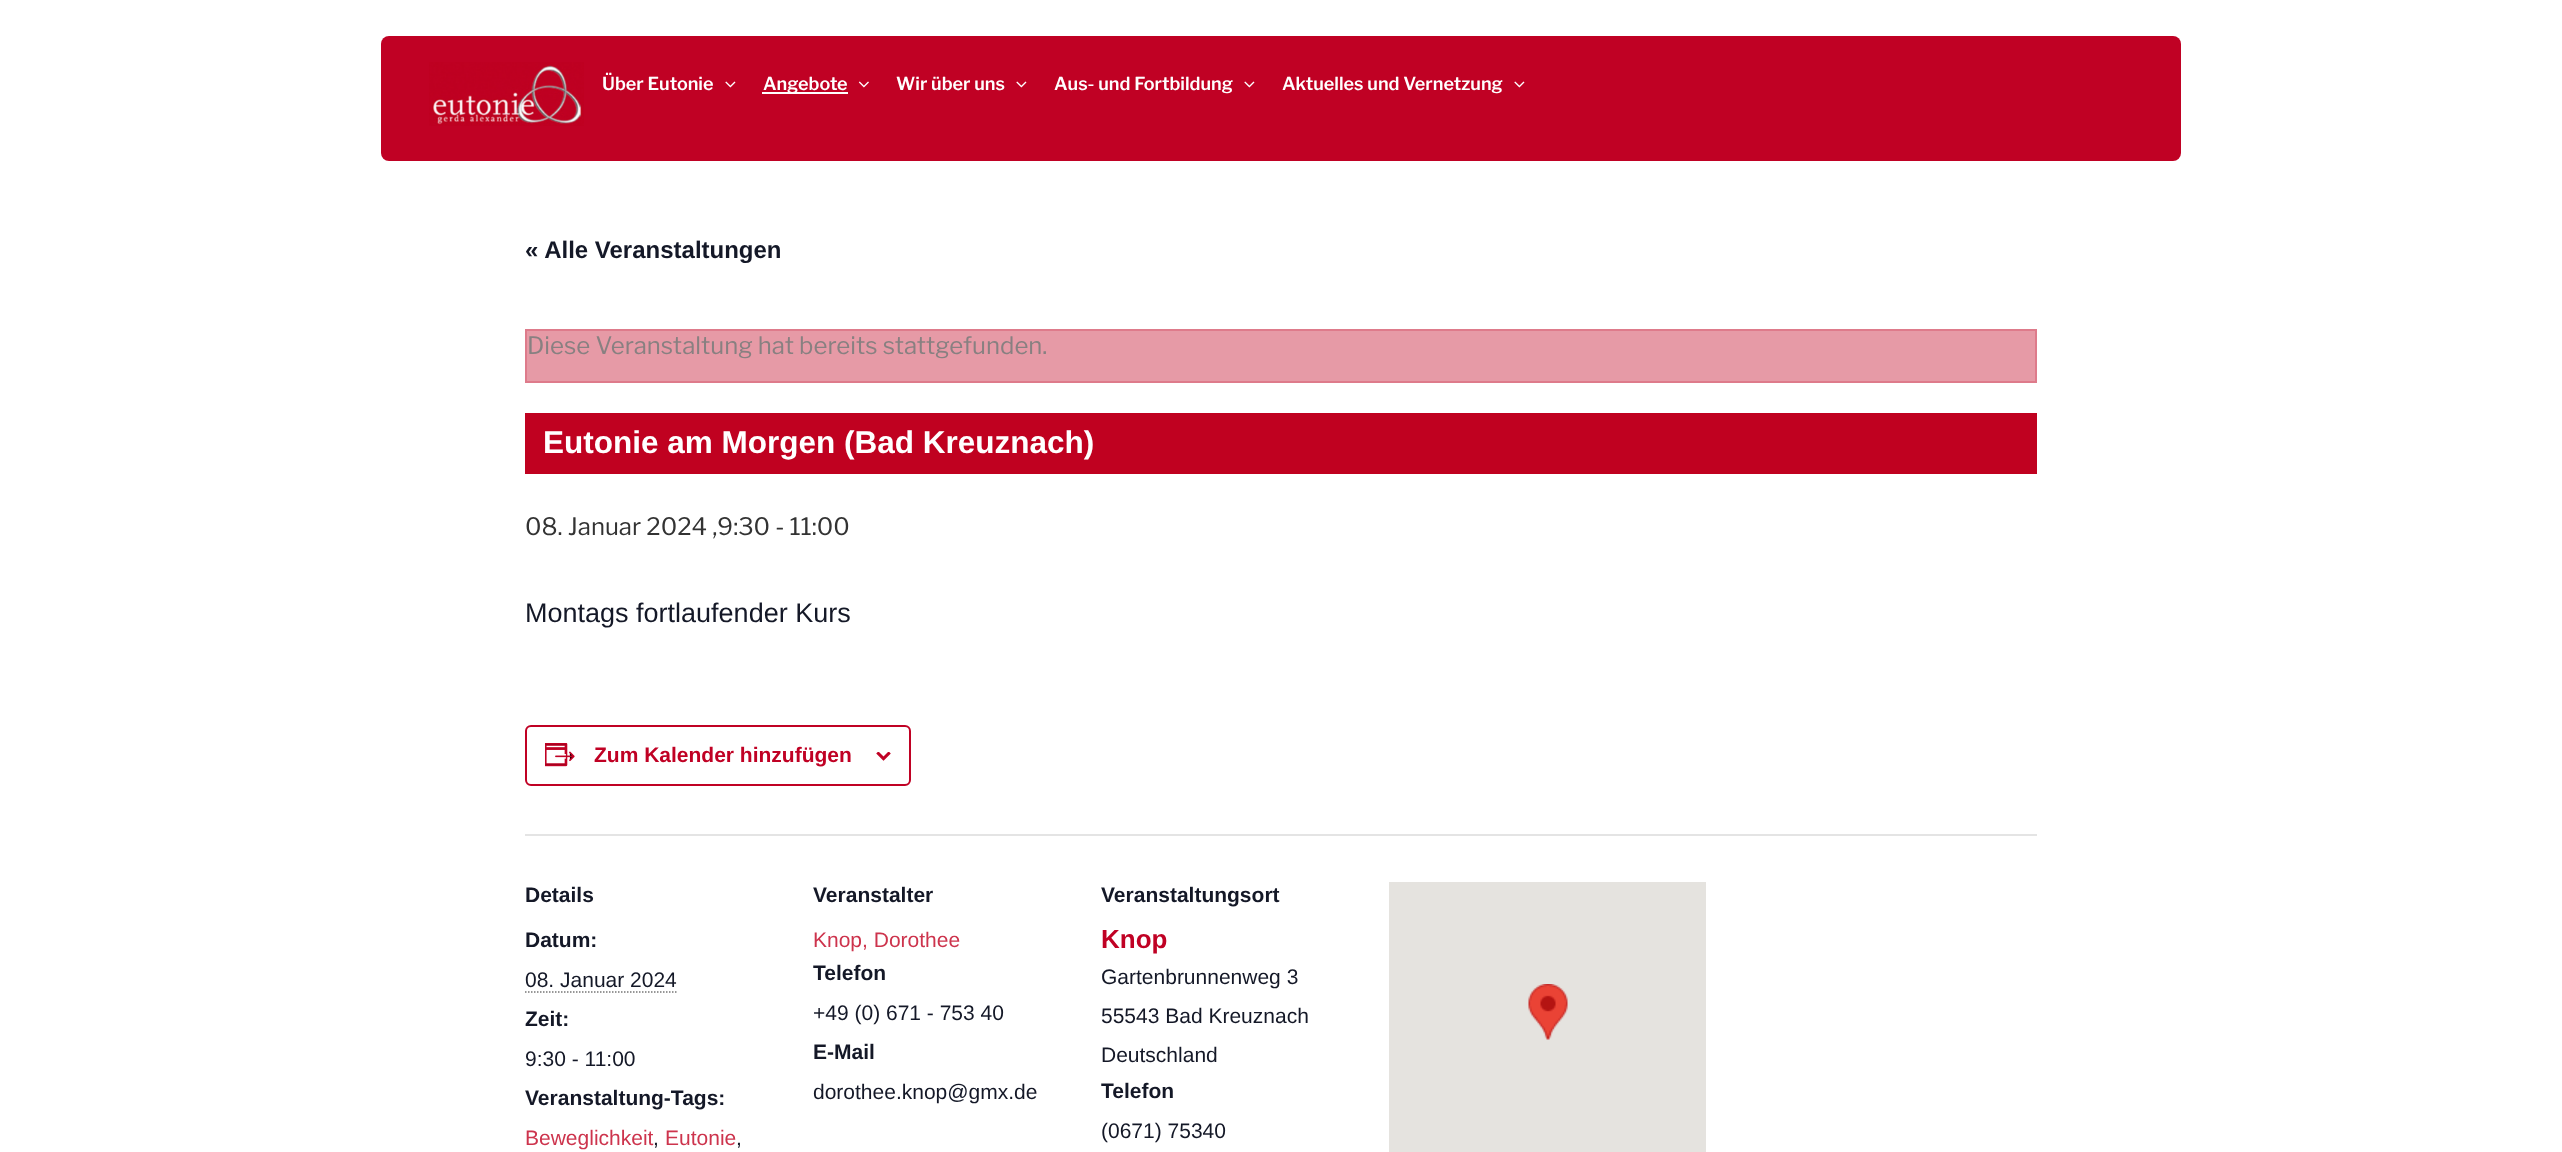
<svg xmlns="http://www.w3.org/2000/svg" width="2562" height="1152">
	<rect width="100%" height="100%" fill="#FFFFFF" />
	<rect x="381" y="36" width="1800" height="125" rx="8" fill="#C00124" />
	<image x="429" y="62" width="155" height="64" href="assets/img1.png" />
	<text x="602" y="90" font-family="'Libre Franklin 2'" font-size="18" font-weight="100" fill="#FFFFFF">Über Eutonie</text>
	<image x="725" y="81" width="11" height="7" href="assets/img2.png" />
	<rect x="762" y="92" width="86" height="2" fill="#FFFFFF" />
	<text x="763" y="90" font-family="'Libre Franklin 2'" font-size="18" font-weight="100" fill="#FFFFFF">Angebote</text>
	<image x="858" y="81" width="11" height="7" href="assets/img3.png" />
	<text x="896" y="90" font-family="'Libre Franklin 2'" font-size="18" font-weight="100" fill="#FFFFFF">Wir über uns</text>
	<image x="1016" y="81" width="11" height="7" href="assets/img2.png" />
	<text x="1054" y="90" font-family="'Libre Franklin 2'" font-size="18" font-weight="100" fill="#FFFFFF">Aus- und Fortbildung</text>
	<image x="1244" y="81" width="11" height="7" href="assets/img2.png" />
	<text x="1282" y="90" font-family="'Libre Franklin 2'" font-size="18" font-weight="100" fill="#FFFFFF">Aktuelles und Vernetzung</text>
	<image x="1514" y="81" width="11" height="7" href="assets/img2.png" />
	<text x="525" y="258" font-family="Liberation Sans" font-size="24" font-weight="700" fill="#141827">« Alle Veranstaltungen</text>
	<rect x="526" y="330" width="1510" height="52" fill="#E69AA6" stroke="#DE7B8B" stroke-width="2" />
	<text x="527" y="354" font-family="Libre Franklin" font-size="24" font-weight="100" fill="#888081">Diese Veranstaltung hat bereits stattgefunden.</text>
	<rect x="525" y="413" width="1512" height="61" fill="#C00120" />
	<text x="543" y="453" font-family="Liberation Sans" font-size="31.5" font-weight="700" fill="#FFFFFF">Eutonie am Morgen (Bad Kreuznach)</text>
	<text x="525" y="535" font-family="Libre Franklin" font-size="24" font-weight="100" fill="#333333">08. Januar 2024 ,9:30 - 11:00</text>
	<text x="525" y="622" font-family="Liberation Sans" font-size="27" fill="#141827">Montags fortlaufender Kurs</text>
	<rect x="526" y="726" width="384" height="59" rx="5" fill="none" stroke="#C00124" stroke-width="2" />
	<image x="545" y="743" width="30" height="24" href="assets/img4.png" />
	<text x="594" y="762" font-family="Liberation Sans" font-size="21" font-weight="700" fill="#C00124">Zum Kalender hinzufügen</text>
	<image x="876" y="752" width="15" height="9" href="assets/img5.png" />
	<rect x="525" y="834" width="1512" height="2" fill="#E4E4E4" />
	<g font-family="Liberation Sans" font-size="21" font-weight="700" fill="#141827">
		<text x="525" y="902">Details</text>
		<text x="525" y="947">Datum:</text>
	</g>
	<text x="525" y="987" font-family="Liberation Sans" font-size="21" fill="#141827">08. Januar 2024</text>
	<path d="M525 992H676.5" fill="none" stroke="#767676" stroke-width="1.5" stroke-dasharray="1.5 1.5" />
	<text x="525" y="1026" font-family="Liberation Sans" font-size="21" font-weight="700" fill="#141827">Zeit:</text>
	<text x="525" y="1066" font-family="Liberation Sans" font-size="21" fill="#141827">9:30 - 11:00</text>
	<text x="525" y="1105" font-family="Liberation Sans" font-size="21" font-weight="700" fill="#141827">Veranstaltung-Tags:</text>
	<text x="525" y="1145" font-family="Liberation Sans" font-size="21" fill="#CD344D">Beweglichkeit</text>
	<text x="653" y="1145" font-family="Liberation Sans" font-size="21" fill="#141827">,</text>
	<text x="665" y="1145" font-family="Liberation Sans" font-size="21" fill="#CD344D">Eutonie</text>
	<text x="736" y="1145" font-family="Liberation Sans" font-size="21" fill="#141827">,</text>
	<text x="813" y="902" font-family="Liberation Sans" font-size="21" font-weight="700" fill="#141827">Veranstalter</text>
	<text x="813" y="947" font-family="Liberation Sans" font-size="21" fill="#CD344D">Knop, Dorothee</text>
	<text x="813" y="980" font-family="Liberation Sans" font-size="21" font-weight="700" fill="#141827">Telefon</text>
	<text x="813" y="1020" font-family="Liberation Sans" font-size="21" fill="#141827">+49 (0) 671 - 753 40</text>
	<text x="813" y="1059" font-family="Liberation Sans" font-size="21" font-weight="700" fill="#141827">E-Mail</text>
	<text x="813" y="1099" font-family="Liberation Sans" font-size="21" fill="#141827">dorothee.knop@gmx.de</text>
	<text x="1101" y="902" font-family="Liberation Sans" font-size="21" font-weight="700" fill="#141827">Veranstaltungsort</text>
	<text x="1101" y="948" font-family="Liberation Sans" font-size="26" font-weight="700" fill="#C00124">Knop</text>
	<g font-family="Liberation Sans" font-size="21" fill="#141827">
		<text x="1101" y="984">Gartenbrunnenweg 3</text>
		<text x="1101" y="1023">55543 Bad Kreuznach</text>
		<text x="1101" y="1062">Deutschland</text>
	</g>
	<text x="1101" y="1098" font-family="Liberation Sans" font-size="21" font-weight="700" fill="#141827">Telefon</text>
	<text x="1101" y="1138" font-family="Liberation Sans" font-size="21" fill="#141827">(0671) 75340</text>
	<rect x="1389" y="882" width="317" height="270" fill="#E5E3DF" />
	<image x="1528" y="984" width="40" height="56" href="assets/img6.png" />
</svg>
